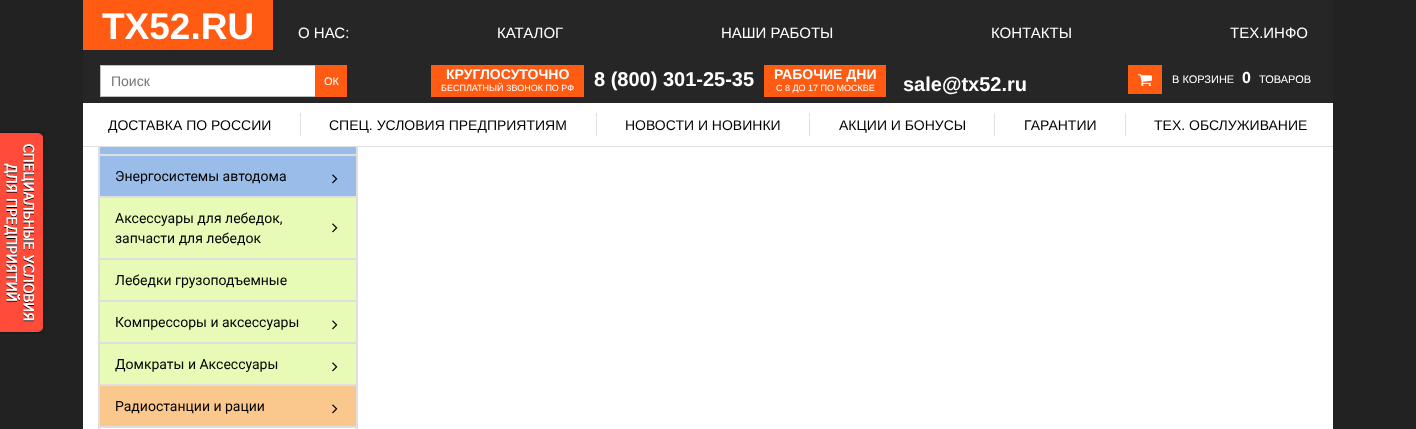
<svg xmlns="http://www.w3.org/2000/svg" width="1416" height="429">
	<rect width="100%" height="100%" fill="#222222" />
	<rect x="83" y="0" width="1250" height="103" fill="#262626" />
	<rect x="83" y="146" width="1250" height="1" fill="#E0E0E0" />
	<rect x="83" y="0" width="190" height="50" fill="#FF5B13" />
	<text x="102" y="39" font-family="Liberation Sans" font-size="37" font-weight="700" fill="#FFFFFF">ТХ52.RU</text>
	<g font-family="Liberation Sans" font-size="15" fill="#FFFFFF">
		<text x="298" y="38">О НАС:</text>
		<text x="497" y="38">КАТАЛОГ</text>
		<text x="721" y="38">НАШИ РАБОТЫ</text>
		<text x="991" y="38">КОНТАКТЫ</text>
		<text x="1230" y="38">ТЕХ.ИНФО</text>
	</g>
	<rect x="101" y="66" width="214" height="30" fill="#FFFFFF" />
	<rect x="100.5" y="65.5" width="216" height="31" fill="none" stroke="#BFBFBF" />
	<text x="111" y="86" font-family="Liberation Sans" font-size="14" fill="#757575">Поиск</text>
	<rect x="315" y="65" width="32" height="32" fill="#FF5B13" />
	<text x="324" y="85" font-family="Liberation Sans" font-size="11" fill="#FFFFFF">ОК</text>
	<rect x="431" y="65" width="153" height="32" fill="#FF5B13" />
	<text x="446" y="79" font-family="Liberation Sans" font-size="14" font-weight="700" fill="#FFFFFF">КРУГЛОСУТОЧНО</text>
	<text x="441" y="91" font-family="Liberation Sans" font-size="9" fill="#FFFFFF">БЕСПЛАТНЫЙ ЗВОНОК ПО РФ</text>
	<text x="594" y="86" font-family="Liberation Sans" font-size="20" font-weight="700" fill="#FFFFFF">8 (800) 301-25-35</text>
	<rect x="764" y="65" width="122" height="32" fill="#FF5B13" />
	<text x="774" y="79" font-family="Liberation Sans" font-size="14" font-weight="700" fill="#FFFFFF">РАБОЧИЕ ДНИ</text>
	<text x="776" y="91" font-family="Liberation Sans" font-size="9" fill="#FFFFFF">С 8 ДО 17 ПО МОСКВЕ</text>
	<text x="903" y="91" font-family="Liberation Sans" font-size="20" font-weight="700" fill="#FFFFFF">sale@tx52.ru</text>
	<rect x="1128" y="65" width="34" height="29" fill="#FF5B13" />
	<image x="1138" y="74" width="14" height="13" href="assets/img1.png" />
	<text x="1172" y="83" font-family="Liberation Sans" font-size="11" fill="#FFFFFF">В КОРЗИНЕ</text>
	<text x="1242" y="83" font-family="Liberation Sans" font-size="16" font-weight="700" fill="#FFFFFF">0</text>
	<text x="1259" y="83" font-family="Liberation Sans" font-size="11" fill="#FFFFFF">ТОВАРОВ</text>
	<rect x="83" y="103" width="1250" height="43" fill="#FFFFFF" />
	<text x="108" y="130" font-family="Liberation Sans" font-size="14" fill="#000000">ДОСТАВКА ПО РОССИИ</text>
	<rect x="300" y="113" width="1" height="23" fill="#E1E1E1" />
	<text x="329" y="130" font-family="Liberation Sans" font-size="14" fill="#000000">СПЕЦ. УСЛОВИЯ ПРЕДПРИЯТИЯМ</text>
	<rect x="596" y="113" width="1" height="23" fill="#E1E1E1" />
	<text x="625" y="130" font-family="Liberation Sans" font-size="14" fill="#000000">НОВОСТИ И НОВИНКИ</text>
	<rect x="809" y="113" width="1" height="23" fill="#E1E1E1" />
	<text x="839" y="130" font-family="Liberation Sans" font-size="14" fill="#000000">АКЦИИ И БОНУСЫ</text>
	<rect x="994" y="113" width="1" height="23" fill="#E1E1E1" />
	<text x="1024" y="130" font-family="Liberation Sans" font-size="14" fill="#000000">ГАРАНТИИ</text>
	<rect x="1125" y="113" width="1" height="23" fill="#E1E1E1" />
	<text x="1154" y="130" font-family="Liberation Sans" font-size="14" fill="#000000">ТЕХ. ОБСЛУЖИВАНИЕ</text>
	<image x="0" y="131" width="45" height="203" href="assets/img2.png" />
	<rect x="83" y="147" width="1250" height="282" fill="#FFFFFF" />
	<rect x="356" y="147" width="2" height="282" fill="#DFDFDF" />
	<rect x="98" y="147" width="2" height="282" fill="#DFDFDF" />
	<rect x="100" y="147" width="256" height="7" fill="#9ABCE8" />
	<rect x="100" y="154" width="256" height="2" fill="#DFDFDF" />
	<rect x="100" y="156" width="256" height="40" fill="#9ABCE8" />
	<rect x="100" y="196" width="256" height="2" fill="#DFDFDF" />
	<text x="115" y="181" font-family="Roboto" font-size="14" fill="#000000">Энергосистемы автодома</text>
	<image x="332" y="174" width="6" height="10" href="assets/img3.png" />
	<rect x="100" y="198" width="256" height="60" fill="#E7FBB7" />
	<rect x="100" y="258" width="256" height="2" fill="#DFDFDF" />
	<g font-family="Roboto" font-size="14" fill="#000000">
		<text x="115" y="223">Аксессуары для лебедок,</text>
		<text x="115" y="243">запчасти для лебедок</text>
	</g>
	<image x="332" y="223" width="6" height="10" href="assets/img4.png" />
	<rect x="100" y="260" width="256" height="40" fill="#E7FBB7" />
	<rect x="100" y="300" width="256" height="2" fill="#DFDFDF" />
	<text x="115" y="285" font-family="Roboto" font-size="14" fill="#000000">Лебедки грузоподъемные</text>
	<rect x="100" y="302" width="256" height="40" fill="#E7FBB7" />
	<rect x="100" y="342" width="256" height="2" fill="#DFDFDF" />
	<text x="115" y="327" font-family="Roboto" font-size="14" fill="#000000">Компрессоры и аксессуары</text>
	<image x="332" y="320" width="6" height="10" href="assets/img4.png" />
	<rect x="100" y="344" width="256" height="40" fill="#E7FBB7" />
	<rect x="100" y="384" width="256" height="2" fill="#DFDFDF" />
	<text x="115" y="369" font-family="Roboto" font-size="14" fill="#000000">Домкраты и Аксессуары</text>
	<image x="332" y="362" width="6" height="10" href="assets/img4.png" />
	<rect x="100" y="386" width="256" height="40" fill="#FAC78D" />
	<rect x="100" y="426" width="256" height="2" fill="#DFDFDF" />
	<text x="115" y="411" font-family="Roboto" font-size="14" fill="#000000">Радиостанции и рации</text>
	<image x="332" y="404" width="6" height="10" href="assets/img5.png" />
</svg>
